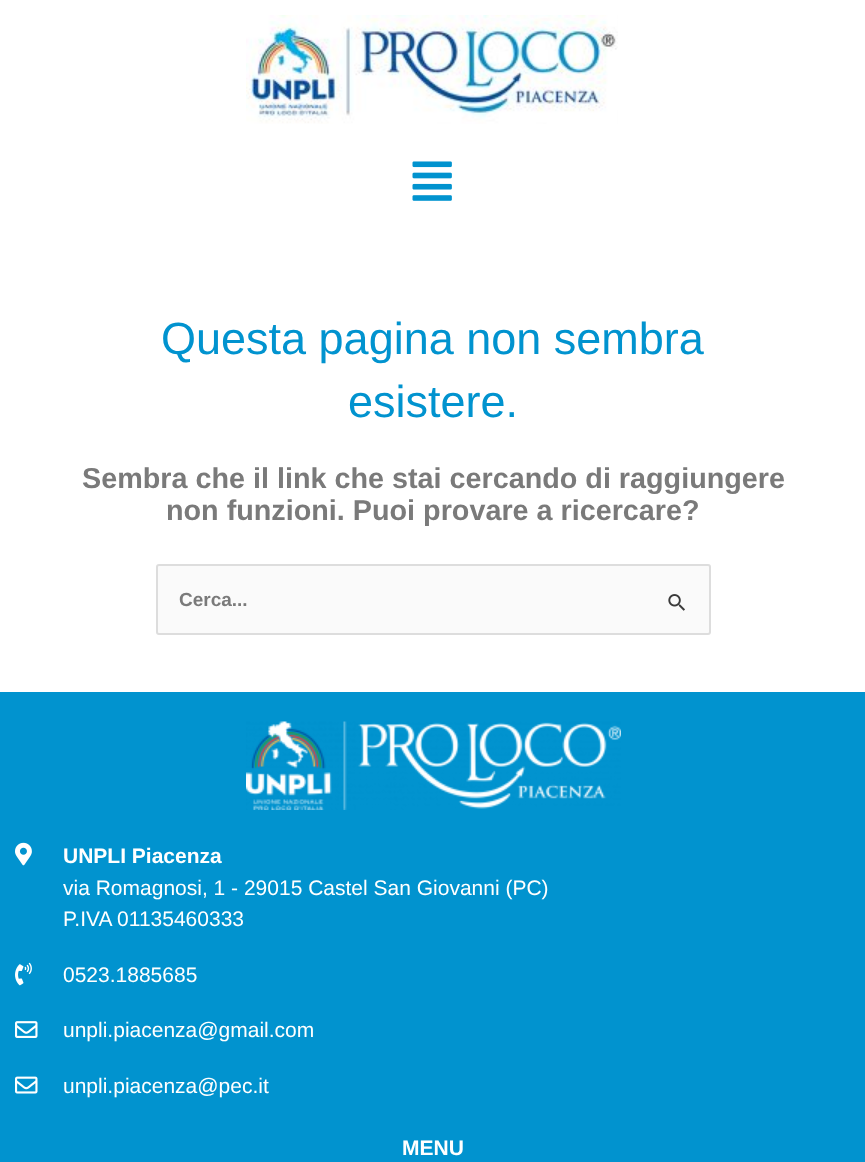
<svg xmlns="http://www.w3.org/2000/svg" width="865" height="1162">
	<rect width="100%" height="100%" fill="#FFFFFF" />
	<image x="246" y="15" width="372" height="109" href="assets/img1.png" />
	<image x="412" y="161" width="40" height="40" href="assets/img2.png" />
	<g font-family="Liberation Sans" font-size="45" fill="#0193CF">
		<text x="161" y="354">Questa pagina non sembra</text>
		<text x="348" y="417">esistere.</text>
	</g>
	<g font-family="Liberation Sans" font-size="28.75" font-weight="700" fill="#7A7A7A">
		<text x="82" y="488">Sembra che il link che stai cercando di raggiungere</text>
		<text x="166" y="520">non funzioni. Puoi provare a ricercare?</text>
	</g>
	<rect x="157" y="565" width="553" height="69" rx="2" fill="#FAFAFA" stroke="#DDDDDD" stroke-width="2" />
	<text x="179" y="606" font-family="Liberation Sans" font-size="19" font-weight="700" fill="#7A7A7A">Cerca...</text>
	<image x="668" y="594" width="17" height="17" href="assets/img3.png" />
	<rect x="0" y="692" width="865" height="470" fill="#0193CF" />
	<image x="246" y="721" width="375" height="89" href="assets/img4.png" />
	<image x="15" y="842" width="17" height="24" href="assets/img5.png" />
	<text x="63" y="863" font-family="Liberation Sans" font-size="21" font-weight="700" fill="#FFFFFF">UNPLI Piacenza</text>
	<g font-family="Liberation Sans" font-size="21" fill="#FFFFFF">
		<text x="63" y="895">via Romagnosi, 1 - 29015 Castel San Giovanni (PC)</text>
		<text x="63" y="926">P.IVA 01135460333</text>
	</g>
	<image x="15" y="962" width="17" height="24" href="assets/img6.png" />
	<text x="63" y="982" font-family="Liberation Sans" font-size="21" fill="#FFFFFF">0523.1885685</text>
	<image x="15" y="1021" width="23" height="17" href="assets/img7.png" />
	<text x="63" y="1037" font-family="Liberation Sans" font-size="21" fill="#FFFFFF">unpli.piacenza@gmail.com</text>
	<image x="15" y="1076" width="23" height="18" href="assets/img8.png" />
	<text x="63" y="1093" font-family="Liberation Sans" font-size="21" fill="#FFFFFF">unpli.piacenza@pec.it</text>
	<text x="402" y="1155" font-family="Liberation Sans" font-size="21" font-weight="700" fill="#FFFFFF">MENU</text>
</svg>
